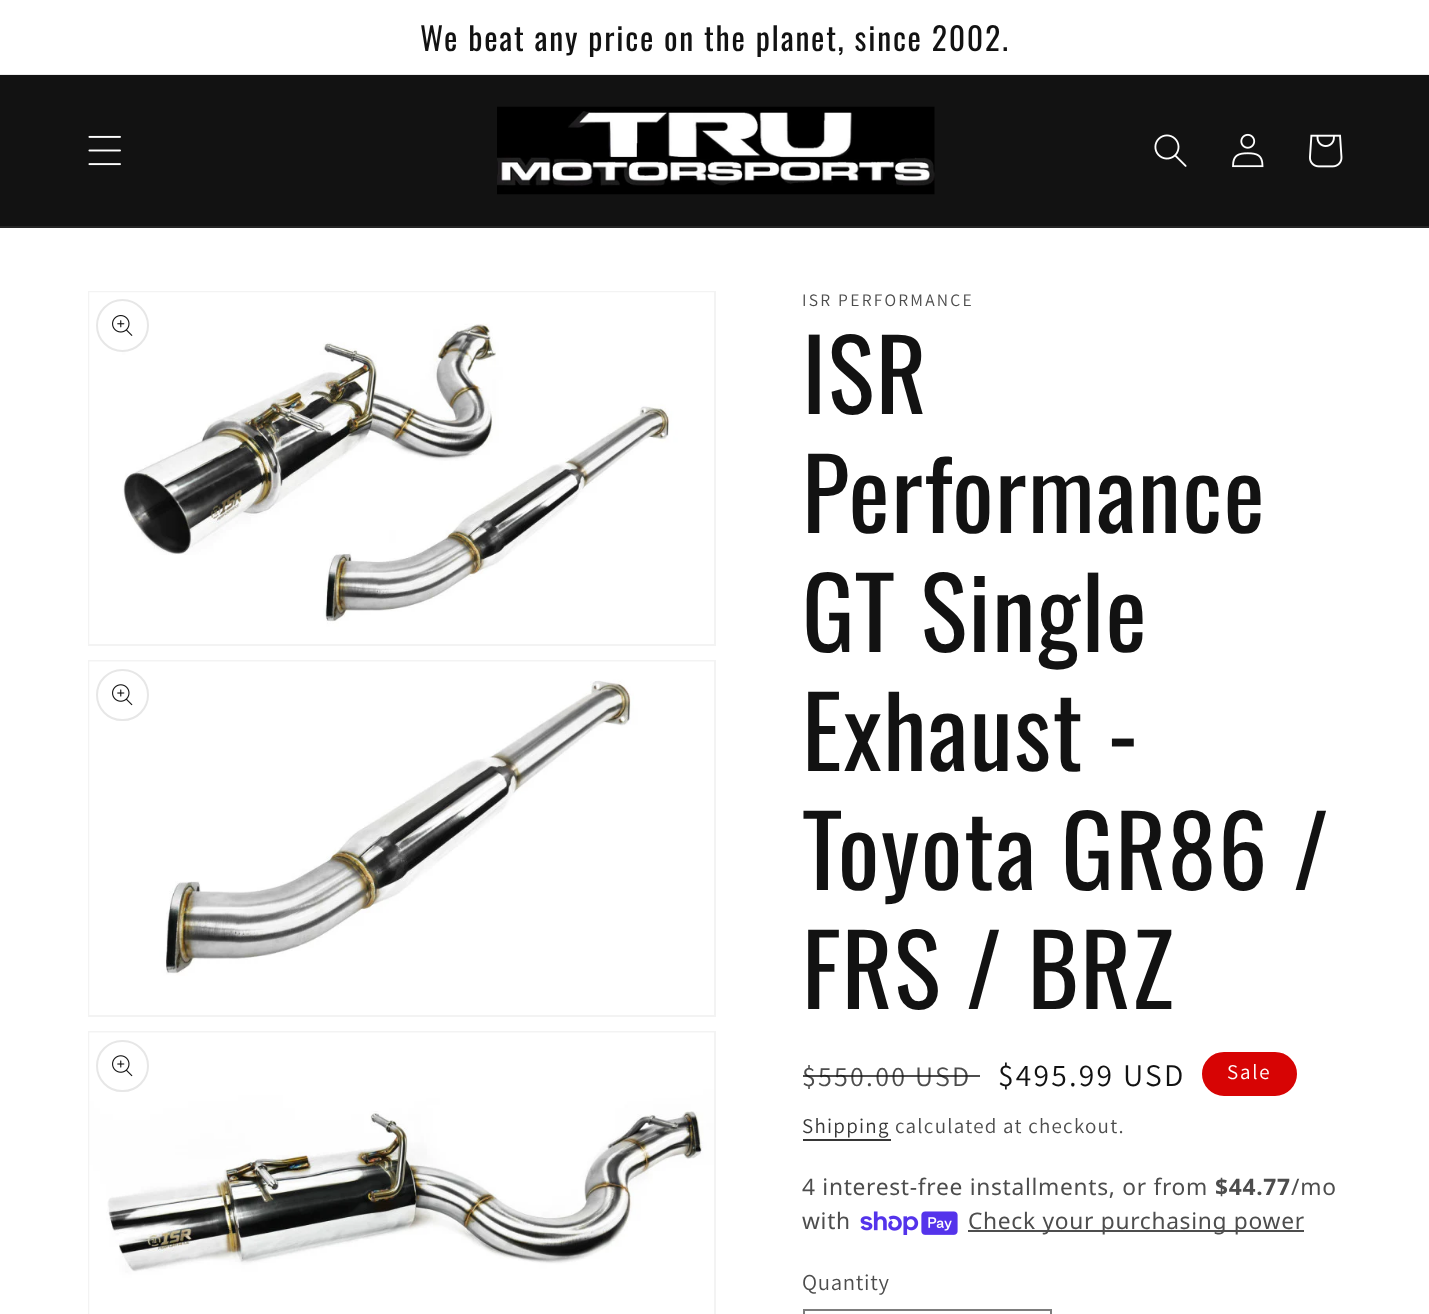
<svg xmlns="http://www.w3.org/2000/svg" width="1429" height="1314">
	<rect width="100%" height="100%" fill="#FFFFFF" />
	<rect x="0" y="74" width="1429" height="1" fill="#ECECEC" />
	<text x="420" y="51" font-family="Oswald" font-size="31.8" letter-spacing="1.75" fill="#121212">We beat any price on the planet, since 2002.</text>
	<rect x="0" y="75" width="1429" height="151" fill="#121212" />
	<rect x="0" y="226" width="1429" height="2" fill="#252525" />
	<image x="88" y="135" width="33" height="31" href="assets/img1.png" />
	<image x="497" y="106" width="438" height="89" href="assets/img2.png" />
	<image x="1154" y="134" width="33" height="33" href="assets/img3.png" />
	<image x="1232" y="133" width="32" height="35" href="assets/img4.png" />
	<image x="1309" y="134" width="34" height="34" href="assets/img5.png" />
	<rect x="89" y="292" width="626" height="353" fill="none" stroke="#F3F3F3" stroke-width="2" />
	<image x="89" y="292" width="625" height="352" href="assets/img6.png" />
	<circle cx="122.5" cy="325.5" r="25.5" fill="none" stroke="#E7E7E7" stroke-width="2" />
	<image x="112" y="315" width="21" height="21" href="assets/img7.png" />
	<rect x="89" y="661" width="626" height="355" fill="none" stroke="#F3F3F3" stroke-width="2" />
	<image x="89" y="661" width="625" height="354" href="assets/img8.png" />
	<rect x="97" y="670" width="51" height="50" rx="25" fill="none" stroke="#E7E7E7" stroke-width="2" />
	<image x="112" y="684" width="21" height="22" href="assets/img9.png" />
	<rect x="89" y="1032" width="626" height="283" fill="none" stroke="#F3F3F3" stroke-width="2" />
	<image x="89" y="1032" width="625" height="282" href="assets/img10.png" />
	<rect x="97" y="1041" width="51" height="50" rx="25" fill="none" stroke="#E7E7E7" stroke-width="2" />
	<image x="112" y="1055" width="21" height="22" href="assets/img9.png" />
	<text x="802" y="306" font-family="Assistant" font-size="17.5" letter-spacing="2.25" fill="#4D4D4D">ISR PERFORMANCE</text>
	<g font-family="Oswald" font-size="98" letter-spacing="1.5" fill="#121212">
		<text x="802" y="414">ISR</text>
		<text x="802" y="533">Performance</text>
		<text x="802" y="652">GT Single</text>
		<text x="802" y="771">Exhaust -</text>
		<text x="802" y="890">Toyota GR86 /</text>
		<text x="802" y="1009">FRS / BRZ</text>
	</g>
	<text x="802" y="1086" font-family="Assistant" font-size="28" letter-spacing="2.25" fill="#4D4D4D">$550.00 USD</text>
	<rect x="803" y="1075" width="177" height="2" fill="#121212" fill-opacity="0.75" />
	<text x="998" y="1086" font-family="Assistant" font-size="31.5" letter-spacing="2.25" fill="#121212">$495.99 USD</text>
	<rect x="1203" y="1053" width="93" height="42" rx="21" fill="#D70404" stroke="#D70404" stroke-width="2" />
	<text x="1227" y="1079" font-family="Assistant" font-size="21" letter-spacing="1.75" fill="#FFFFFF">Sale</text>
	<text x="802" y="1133" font-family="Assistant" font-size="21" letter-spacing="1.25" fill="#363636">Shipping</text>
	<rect x="803" y="1139" width="88" height="2" fill="#363636" />
	<text x="895" y="1133" font-family="Assistant" font-size="21" letter-spacing="1.25" fill="#4D4D4D">calculated at checkout.</text>
	<text x="802" y="1195" font-family="Noto Sans" font-size="22.75" letter-spacing="0.7" fill="#4D4D4D">4 interest-free installments, or from</text>
	<text x="1215" y="1195" font-family="Noto Sans" font-size="22.75" font-weight="700" letter-spacing="0.7" fill="#4D4D4D">$44.77</text>
	<g font-family="Noto Sans" font-size="22.75" letter-spacing="0.7" fill="#4D4D4D">
		<text x="1291" y="1195">/mo</text>
		<text x="802" y="1229">with</text>
	</g>
	<image x="860" y="1211" width="98" height="24" href="assets/img11.png" />
	<rect x="968" y="1230" width="336" height="2" fill="#4D4D4D" />
	<text x="968" y="1229" font-family="Noto Sans" font-size="22.75" letter-spacing="0.7" fill="#4D4D4D">Check your purchasing power</text>
	<text x="802" y="1290" font-family="Assistant" font-size="22.75" letter-spacing="0.7" fill="#4D4D4D">Quantity</text>
	<rect x="804" y="1310" width="247" height="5" fill="none" stroke="#7D7D7D" stroke-width="2" />
</svg>
